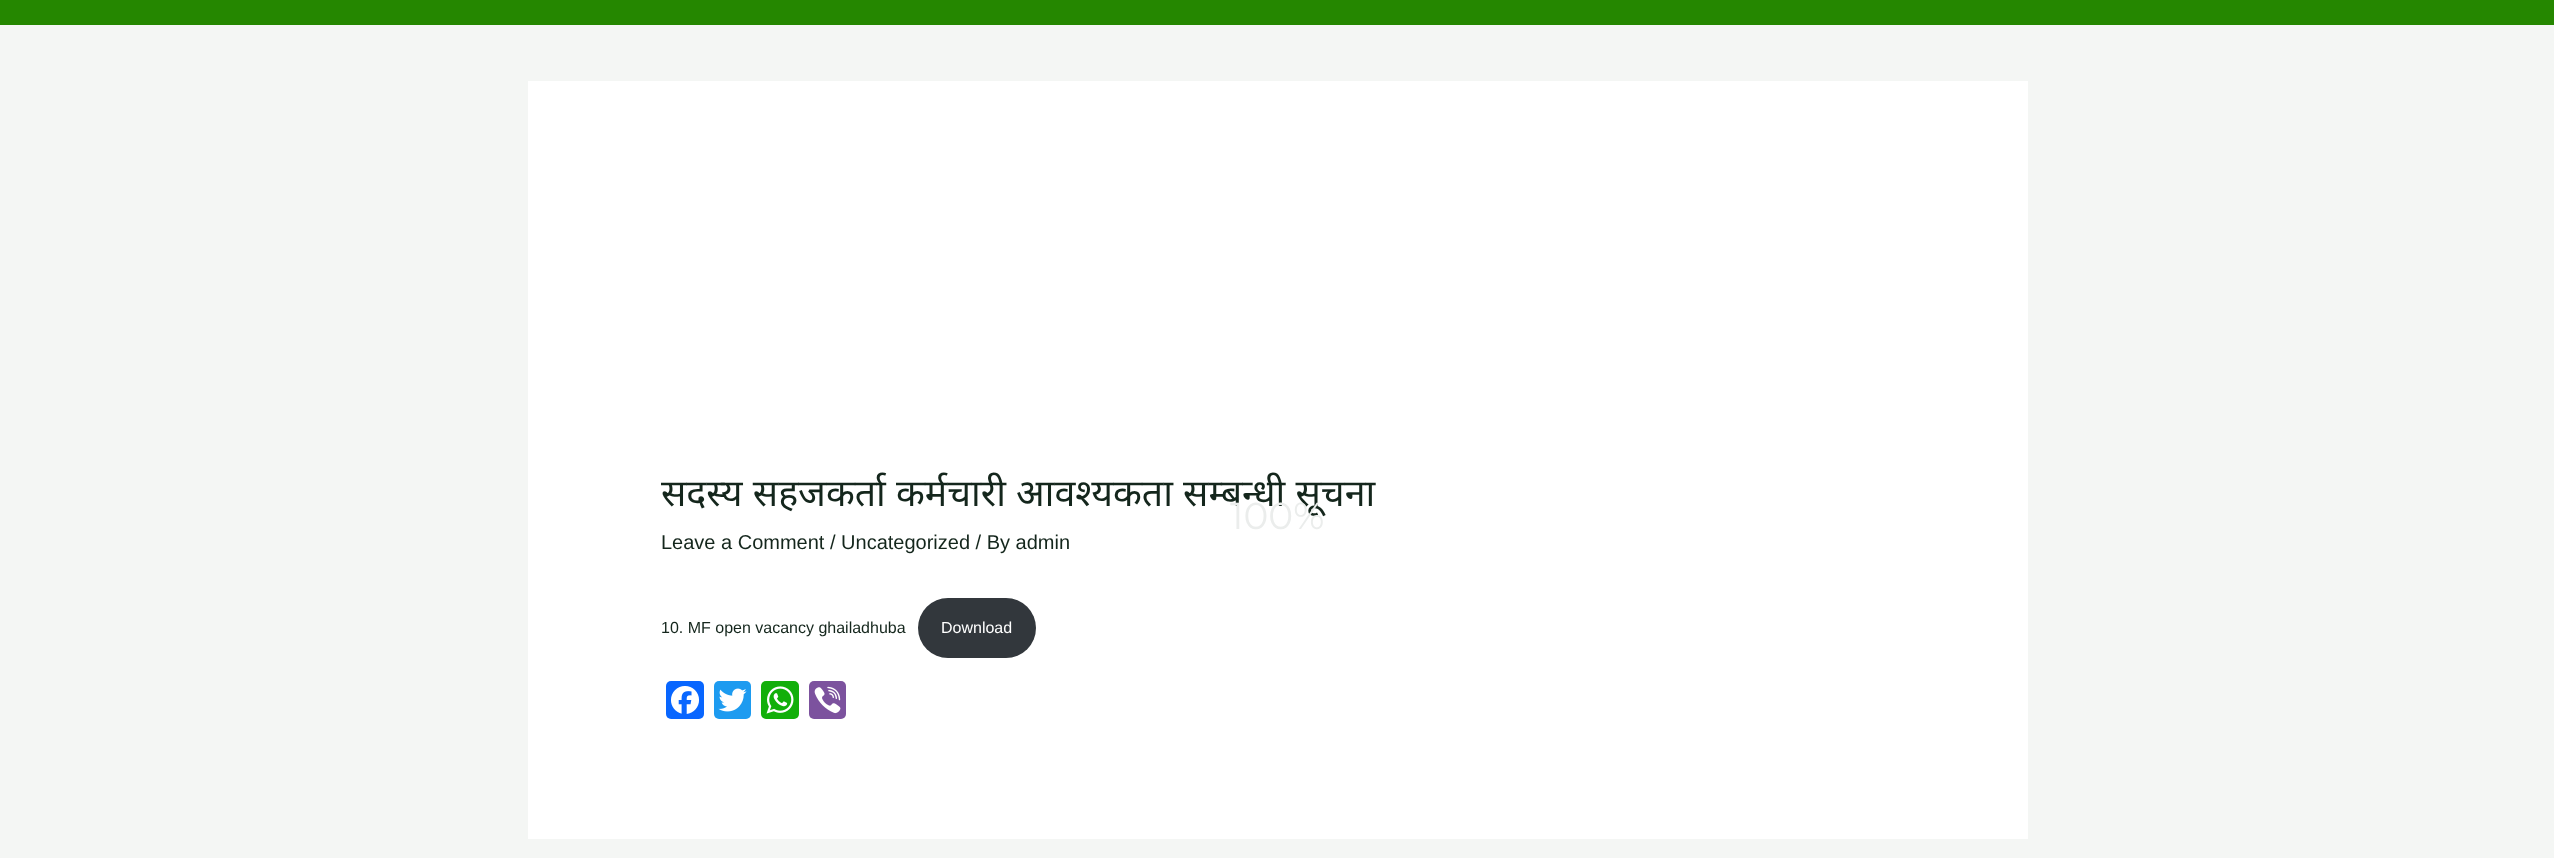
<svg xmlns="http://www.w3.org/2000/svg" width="2554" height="858">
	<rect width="100%" height="100%" fill="#F4F6F4" />
	<rect x="0" y="0" width="2554" height="25" fill="#258700" />
	<rect x="528" y="81" width="1500" height="758" fill="#FFFFFF" />
	<text x="661" y="506" word-spacing="0.5" font-family="Noto Sans" font-size="37.5" fill="#14261C">सदस्य सहजकर्ता कर्मचारी आवश्यकता सम्बन्धी सूचना</text>
	<text x="661" y="549" font-family="Liberation Sans" font-size="20" fill="#14261C">Leave a Comment / Uncategorized / By admin</text>
	<text x="661" y="633" font-family="Liberation Sans" font-size="16" fill="#14261C">10. MF open vacancy ghailadhuba</text>
	<rect x="918" y="598" width="118" height="60" rx="30" fill="#32373C" />
	<text x="941" y="633" font-family="Liberation Sans" font-size="16" fill="#FFFFFF">Download</text>
	<rect x="666" y="681" width="38" height="38" rx="5" fill="#0866FF" />
	<image x="671" y="686" width="28" height="28" href="assets/img1.png" />
	<rect x="714" y="681" width="37" height="38" rx="5" fill="#1D9BF0" />
	<image x="718" y="688" width="29" height="24" href="assets/img2.png" />
	<rect x="761" y="681" width="38" height="38" rx="5" fill="#12AF0A" />
	<image x="766" y="686" width="28" height="28" href="assets/img3.png" />
	<rect x="809" y="681" width="37" height="38" rx="5" fill="#7C529E" />
	<image x="814" y="686" width="27" height="28" href="assets/img4.png" />
	<text x="1230" y="529" font-family="Montserrat" font-size="37.5" fill="#EBEDEC">100%</text>
</svg>
